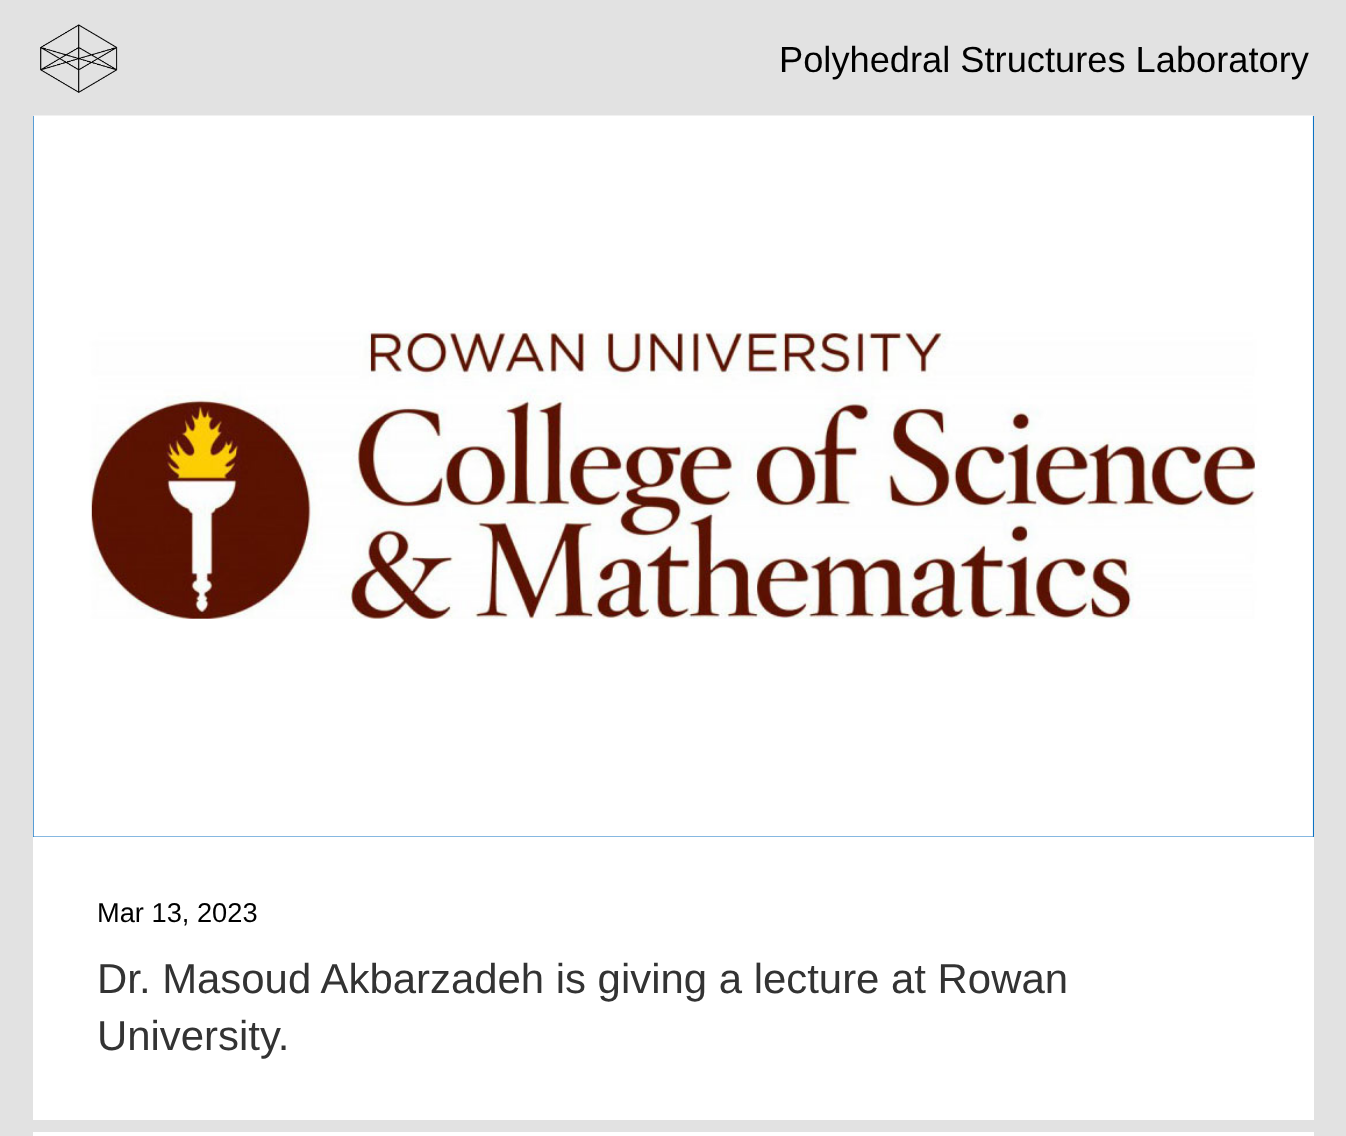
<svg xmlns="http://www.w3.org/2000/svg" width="1346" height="1136">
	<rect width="100%" height="100%" fill="#E2E2E2" />
	<image x="40" y="24" width="78" height="69" href="assets/img1.png" />
	<text x="779" y="72" font-family="Liberation Sans" font-size="36.25" fill="#000000">Polyhedral Structures Laboratory</text>
	<rect x="33" y="837" width="1281" height="283" fill="#FFFFFF" />
	<rect x="33" y="116" width="1281" height="721" fill="#0C71C3" />
	<image x="33" y="115" width="1280" height="722" href="assets/img2.png" />
	<text x="97" y="922" font-family="Liberation Sans" font-size="27.25" fill="#000000">Mar 13, 2023</text>
	<g font-family="Liberation Sans" font-size="41.9" fill="#333333">
		<text x="97" y="993">Dr. Masoud Akbarzadeh is giving a lecture at Rowan</text>
		<text x="97" y="1050">University.</text>
	</g>
	<rect x="33" y="1132" width="1281" height="4" fill="#FFFFFF" />
</svg>
